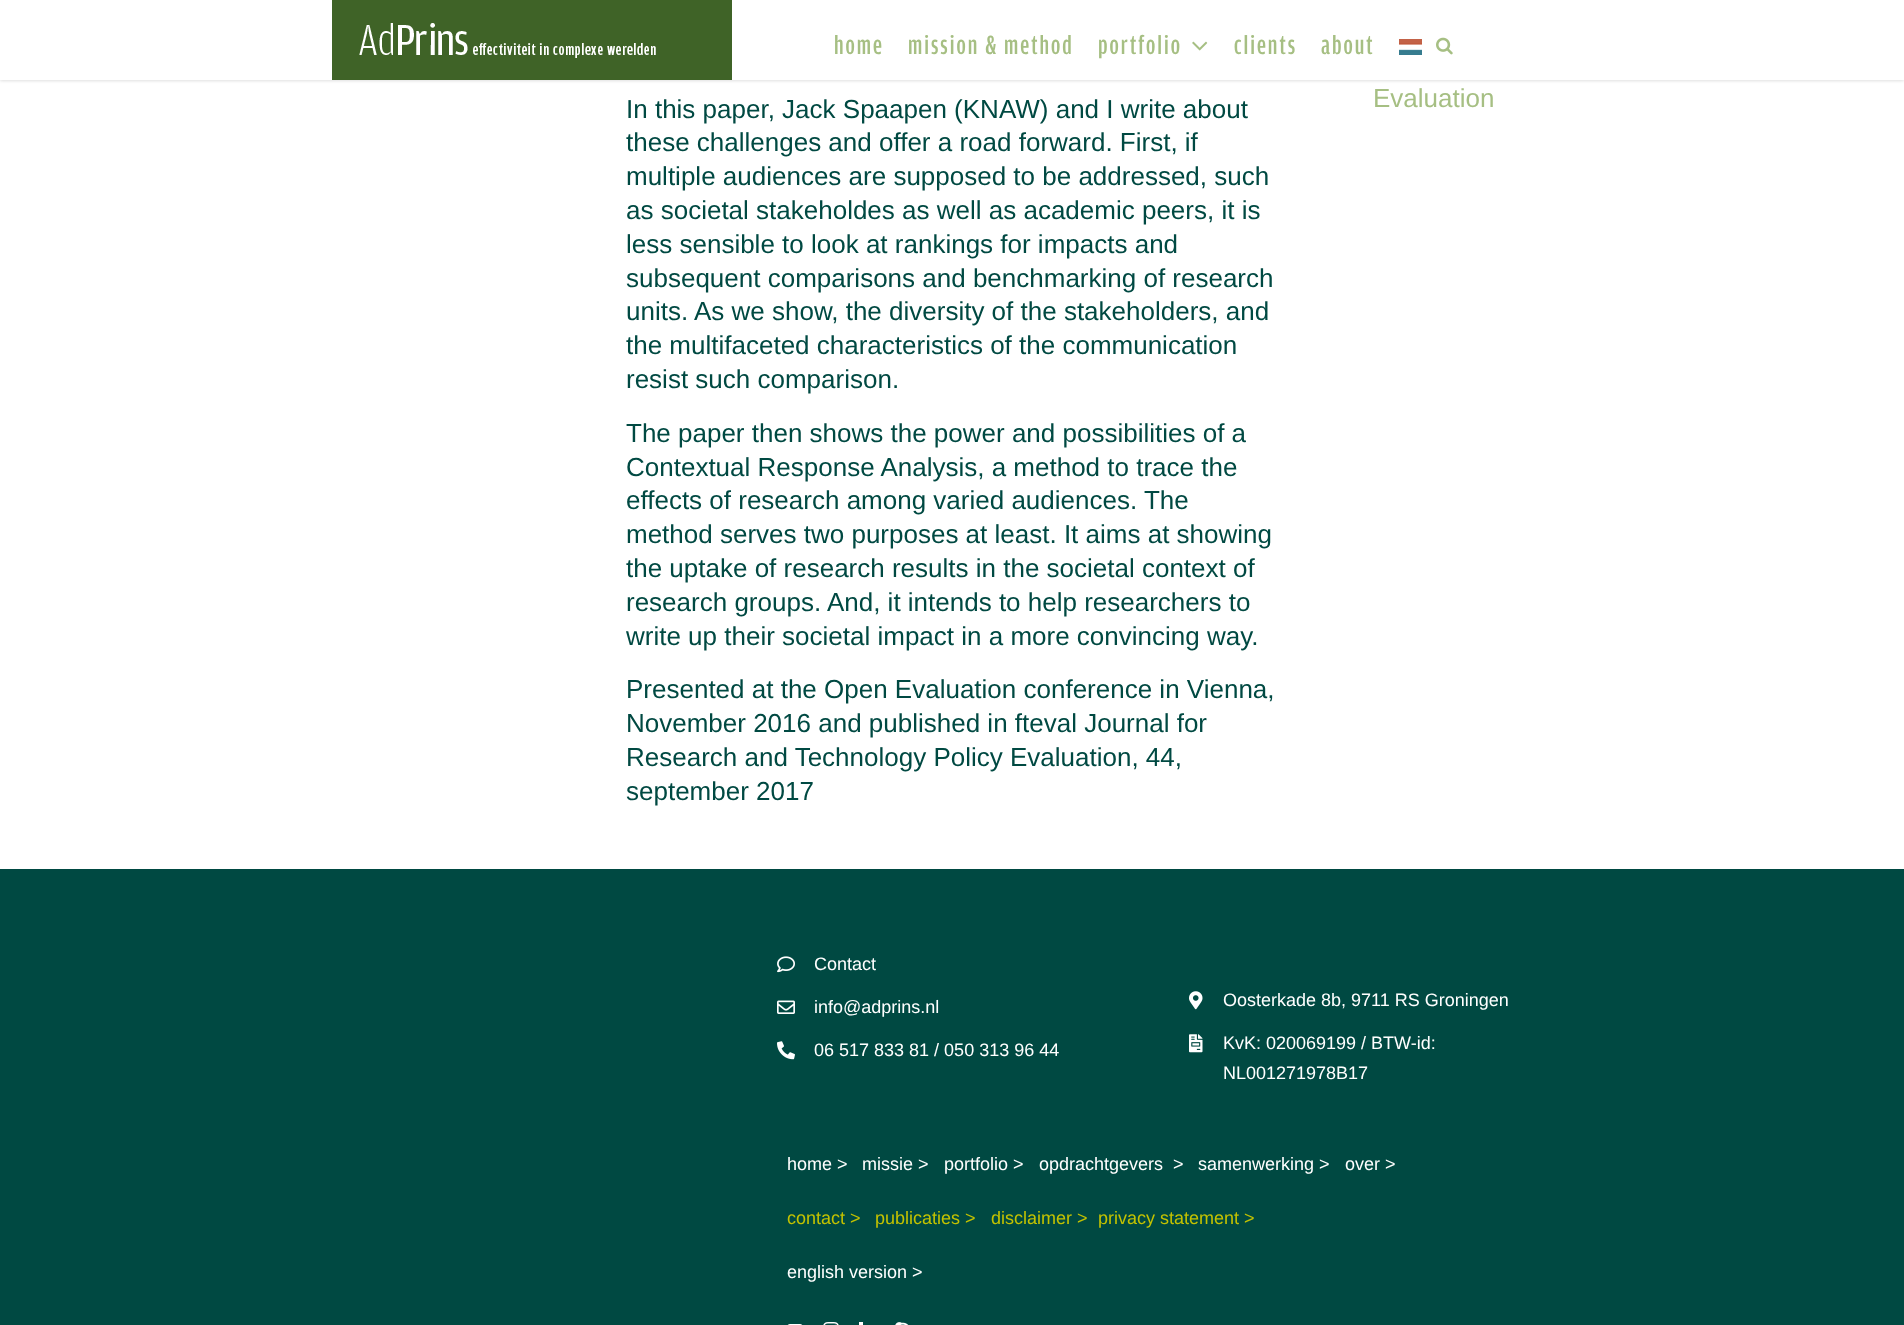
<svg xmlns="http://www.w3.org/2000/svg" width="1904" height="1325">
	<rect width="100%" height="100%" fill="#FFFFFF" />
	<rect x="0" y="1" width="1904" height="80" fill="#000000" fill-opacity="0.12" filter="blur(1.5px)" />
	<rect x="0" y="0" width="1904" height="80" fill="#FFFFFF" />
	<image x="332" y="0" width="400" height="80" href="assets/img1.png" />
	<g font-family="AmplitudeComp" font-size="27" font-weight="500" letter-spacing="2" fill="#A6BF83">
		<text x="834" y="54">home</text>
		<text x="908" y="54">mission &amp; method</text>
		<text x="1098" y="54">portfolio</text>
	</g>
	<image x="1192" y="41" width="16" height="10" href="assets/img2.png" />
	<g font-family="AmplitudeComp" font-size="27" font-weight="500" letter-spacing="2" fill="#A6BF83">
		<text x="1234" y="54">clients</text>
		<text x="1321" y="54">about</text>
	</g>
	<image x="1399" y="39" width="23" height="16" href="assets/img3.png" />
	<image x="1436" y="37" width="17" height="18" href="assets/img4.png" />
	<g font-family="Liberation Sans" font-size="26" fill="#004942">
		<text x="626" y="118">In this paper, Jack Spaapen (KNAW) and I write about</text>
		<text x="626" y="151">these challenges and offer a road forward. First, if</text>
		<text x="626" y="185">multiple audiences are supposed to be addressed, such</text>
		<text x="626" y="219">as societal stakeholdes as well as academic peers, it is</text>
		<text x="626" y="253">less sensible to look at rankings for impacts and</text>
		<text x="626" y="287">subsequent comparisons and benchmarking of research</text>
		<text x="626" y="320">units. As we show, the diversity of the stakeholders, and</text>
		<text x="626" y="354">the multifaceted characteristics of the communication</text>
		<text x="626" y="388">resist such comparison.</text>
		<text x="626" y="442">The paper then shows the power and possibilities of a</text>
		<text x="626" y="476">Contextual Response Analysis, a method to trace the</text>
		<text x="626" y="509">effects of research among varied audiences. The</text>
		<text x="626" y="543">method serves two purposes at least. It aims at showing</text>
		<text x="626" y="577">the uptake of research results in the societal context of</text>
		<text x="626" y="611">research groups. And, it intends to help researchers to</text>
		<text x="626" y="645">write up their societal impact in a more convincing way.</text>
		<text x="626" y="698">Presented at the Open Evaluation conference in Vienna,</text>
		<text x="626" y="732">November 2016 and published in fteval Journal for</text>
		<text x="626" y="766">Research and Technology Policy Evaluation, 44,</text>
		<text x="626" y="800">september 2017</text>
	</g>
	<text x="1373" y="107" font-family="Liberation Sans" font-size="26" fill="#A6BF83">Evaluation</text>
	<rect x="0" y="869" width="1904" height="456" fill="#004942" />
	<image x="777" y="956" width="18" height="17" href="assets/img5.png" />
	<text x="814" y="970" font-family="Liberation Sans" font-size="18" fill="#FFFFFF">Contact</text>
	<image x="777" y="1000" width="18" height="14" href="assets/img6.png" />
	<text x="814" y="1013" font-family="Liberation Sans" font-size="18" fill="#FFFFFF">info@adprins.nl</text>
	<image x="777" y="1041" width="18" height="19" href="assets/img7.png" />
	<text x="814" y="1056" font-family="Liberation Sans" font-size="18" fill="#FFFFFF">06 517 833 81 / 050 313 96 44</text>
	<image x="1189" y="991" width="14" height="19" href="assets/img8.png" />
	<text x="1223" y="1006" font-family="Liberation Sans" font-size="18" fill="#FFFFFF">Oosterkade 8b, 9711 RS Groningen</text>
	<image x="1189" y="1034" width="14" height="19" href="assets/img9.png" />
	<g font-family="Liberation Sans" font-size="18" fill="#FFFFFF">
		<text x="1223" y="1049">KvK: 020069199 / BTW-id:</text>
		<text x="1223" y="1079">NL001271978B17</text>
		<text x="787" y="1170">home &gt;</text>
		<text x="862" y="1170">missie &gt;</text>
		<text x="944" y="1170">portfolio &gt;</text>
		<text x="1039" y="1170">opdrachtgevers</text>
		<text x="1173" y="1170">&gt;</text>
		<text x="1198" y="1170">samenwerking &gt;</text>
		<text x="1345" y="1170">over &gt;</text>
	</g>
	<g font-family="Liberation Sans" font-size="18" fill="#C3C200">
		<text x="787" y="1224">contact &gt;</text>
		<text x="875" y="1224">publicaties &gt;</text>
		<text x="991" y="1224">disclaimer &gt;</text>
		<text x="1098" y="1224">privacy statement &gt;</text>
	</g>
	<text x="787" y="1278" font-family="Liberation Sans" font-size="18" fill="#FFFFFF">english version &gt;</text>
	<image x="787" y="1324" width="16" height="1" href="assets/img10.png" />
	<image x="823" y="1322" width="16" height="3" href="assets/img11.png" />
	<rect x="859" y="1322" width="4" height="3" fill="#FFFFFF" />
	<image x="895" y="1322" width="14" height="3" href="assets/img12.png" />
</svg>
